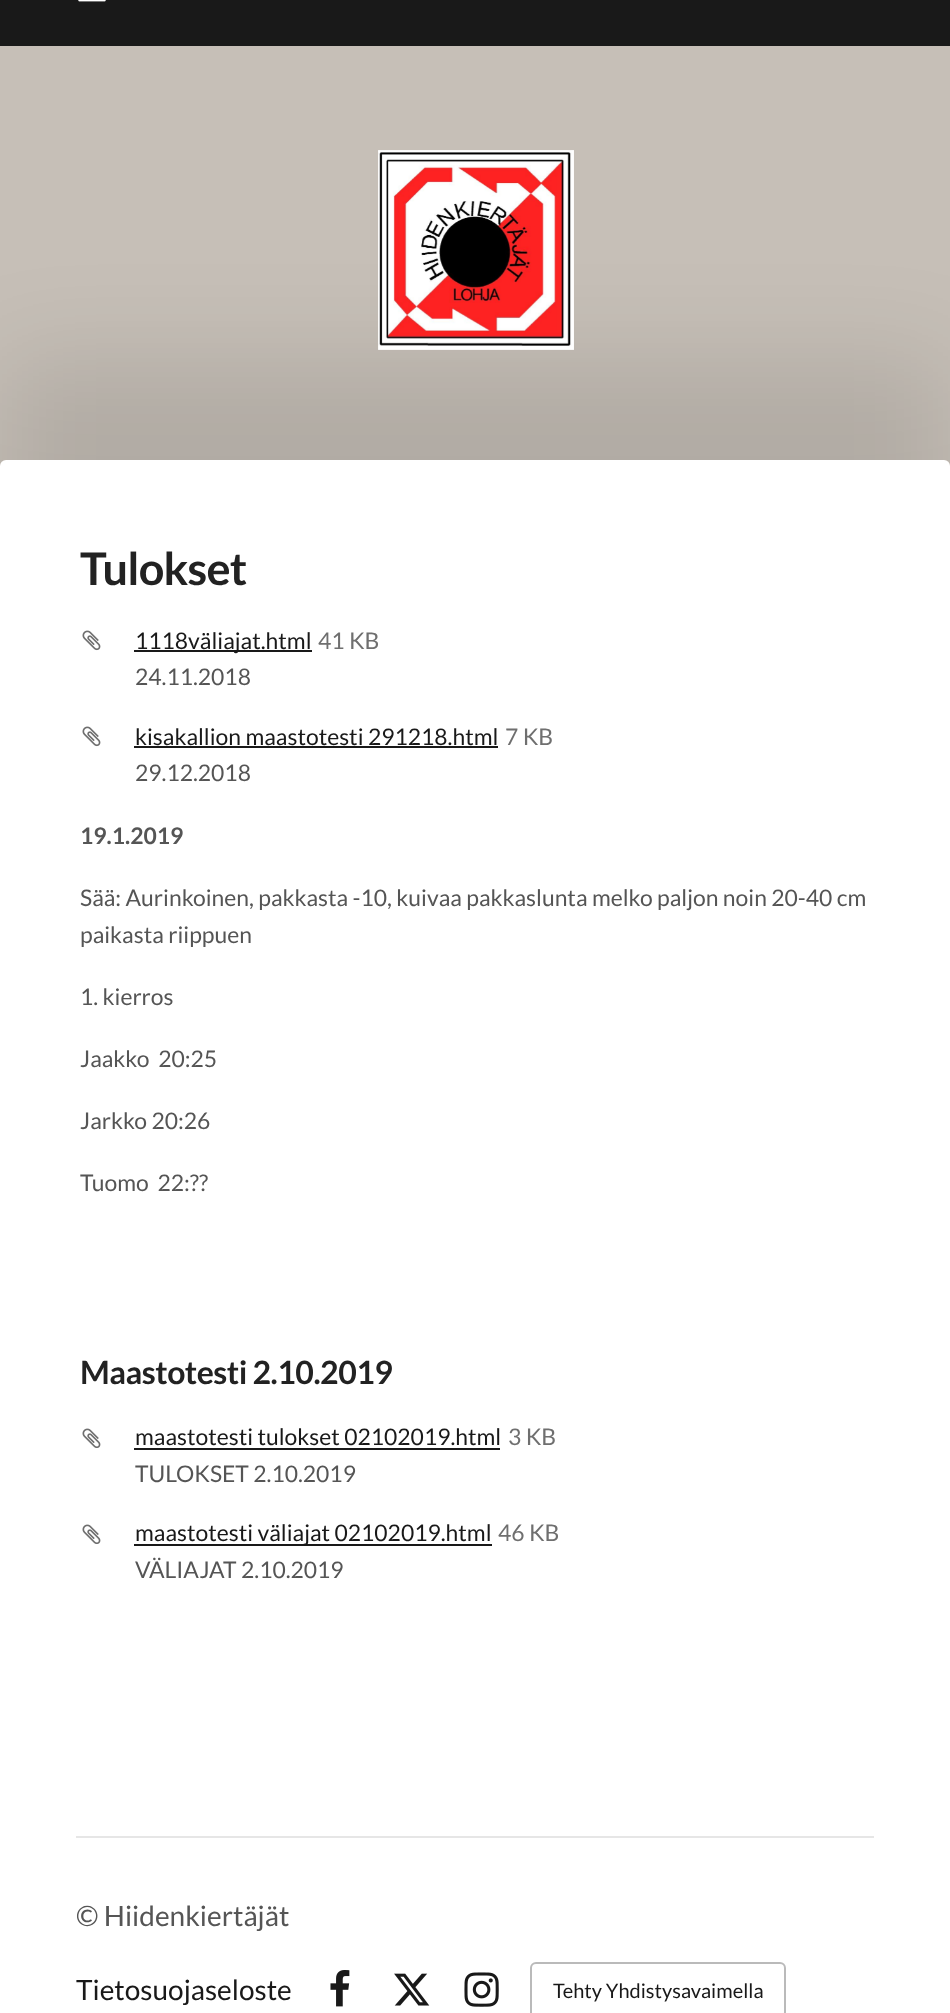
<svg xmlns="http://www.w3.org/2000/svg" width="950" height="2013">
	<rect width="100%" height="100%" fill="#FFFFFF" />
	<rect x="0" y="0" width="950" height="46" fill="#191919" />
	<image x="78" y="0" width="28" height="2" href="assets/img1.png" />
	<rect x="0" y="46" width="950" height="420" fill="#C6BFB7" />
	<rect x="0" y="360" width="950" height="1288" rx="6" fill="#000000" fill-opacity="0.1" filter="blur(50px)" />
	<image x="378" y="150" width="196" height="200" href="assets/img2.png" />
	<rect x="0" y="460" width="950" height="1288" rx="6" fill="#FFFFFF" />
	<text x="80" y="585" font-family="Lato" font-size="45" font-weight="700" letter-spacing="-0.75" fill="#222222">Tulokset</text>
	<image x="82" y="630" width="19" height="21" href="assets/img3.png" />
	<rect x="134" y="650" width="178" height="2" fill="#191919" />
	<text x="135" y="649" font-family="Lato" font-size="22.9" fill="#191919">1118väliajat.html</text>
	<text x="318" y="649" font-family="Lato" font-size="22.9" fill="#6F6F6F">41 KB</text>
	<text x="135" y="685" font-family="Lato" font-size="22.9" fill="#555555">24.11.2018</text>
	<image x="82" y="726" width="19" height="21" href="assets/img3.png" />
	<text x="135" y="745" font-family="Lato" font-size="22.9" fill="#191919">kisakallion maastotesti 291218.html</text>
	<rect x="134" y="746" width="364" height="2" fill="#191919" />
	<text x="505" y="745" font-family="Lato" font-size="22.9" fill="#6F6F6F">7 KB</text>
	<text x="135" y="781" font-family="Lato" font-size="22.9" fill="#555555">29.12.2018</text>
	<text x="80" y="844" font-family="Lato" font-size="22.9" font-weight="700" fill="#555555">19.1.2019</text>
	<g font-family="Lato" font-size="22.9" fill="#555555">
		<text x="80" y="906">Sää: Aurinkoinen, pakkasta -10, kuivaa pakkaslunta melko paljon noin 20-40 cm</text>
		<text x="80" y="943">paikasta riippuen</text>
		<text x="80" y="1005">1. kierros</text>
		<text x="80" y="1067" xml:space="preserve">Jaakko  20:25</text>
		<text x="80" y="1129">Jarkko 20:26</text>
		<text x="80" y="1191" xml:space="preserve">Tuomo  22:??</text>
	</g>
	<text x="80" y="1384" font-family="Lato" font-size="32" font-weight="700" letter-spacing="-0.5" fill="#222222">Maastotesti 2.10.2019</text>
	<image x="82" y="1428" width="19" height="20" href="assets/img4.png" />
	<text x="135" y="1445" font-family="Lato" font-size="22.9" fill="#191919">maastotesti tulokset 02102019.html</text>
	<rect x="134" y="1448" width="366" height="2" fill="#191919" />
	<text x="508" y="1445" font-family="Lato" font-size="22.9" fill="#6F6F6F">3 KB</text>
	<text x="135" y="1482" font-family="Lato" font-size="22.9" fill="#555555">TULOKSET 2.10.2019</text>
	<image x="82" y="1524" width="19" height="20" href="assets/img4.png" />
	<rect x="134" y="1544" width="358" height="2" fill="#191919" />
	<text x="135" y="1541" font-family="Lato" font-size="22.9" fill="#191919">maastotesti väliajat 02102019.html</text>
	<text x="498" y="1541" font-family="Lato" font-size="22.9" fill="#6F6F6F">46 KB</text>
	<text x="135" y="1578" font-family="Lato" font-size="22.9" fill="#555555">VÄLIAJAT 2.10.2019</text>
	<rect x="76" y="1836" width="798" height="2" fill="#E6E6E6" />
	<text x="76" y="1926" font-family="Lato" font-size="28" fill="#555555">© Hiidenkiertäjät</text>
	<text x="76" y="2000" font-family="Lato" font-size="28" fill="#191919">Tietosuojaseloste</text>
	<image x="330" y="1970" width="20" height="37" href="assets/img5.png" />
	<image x="394" y="1973" width="36" height="33" href="assets/img6.png" />
	<image x="464" y="1972" width="35" height="35" href="assets/img7.png" />
	<rect x="531" y="1963" width="254" height="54" rx="5" fill="none" stroke="#BABABA" stroke-width="2" />
	<text x="553" y="1998" font-family="Lato" font-size="20" fill="#191919">Tehty Yhdistysavaimella</text>
</svg>
